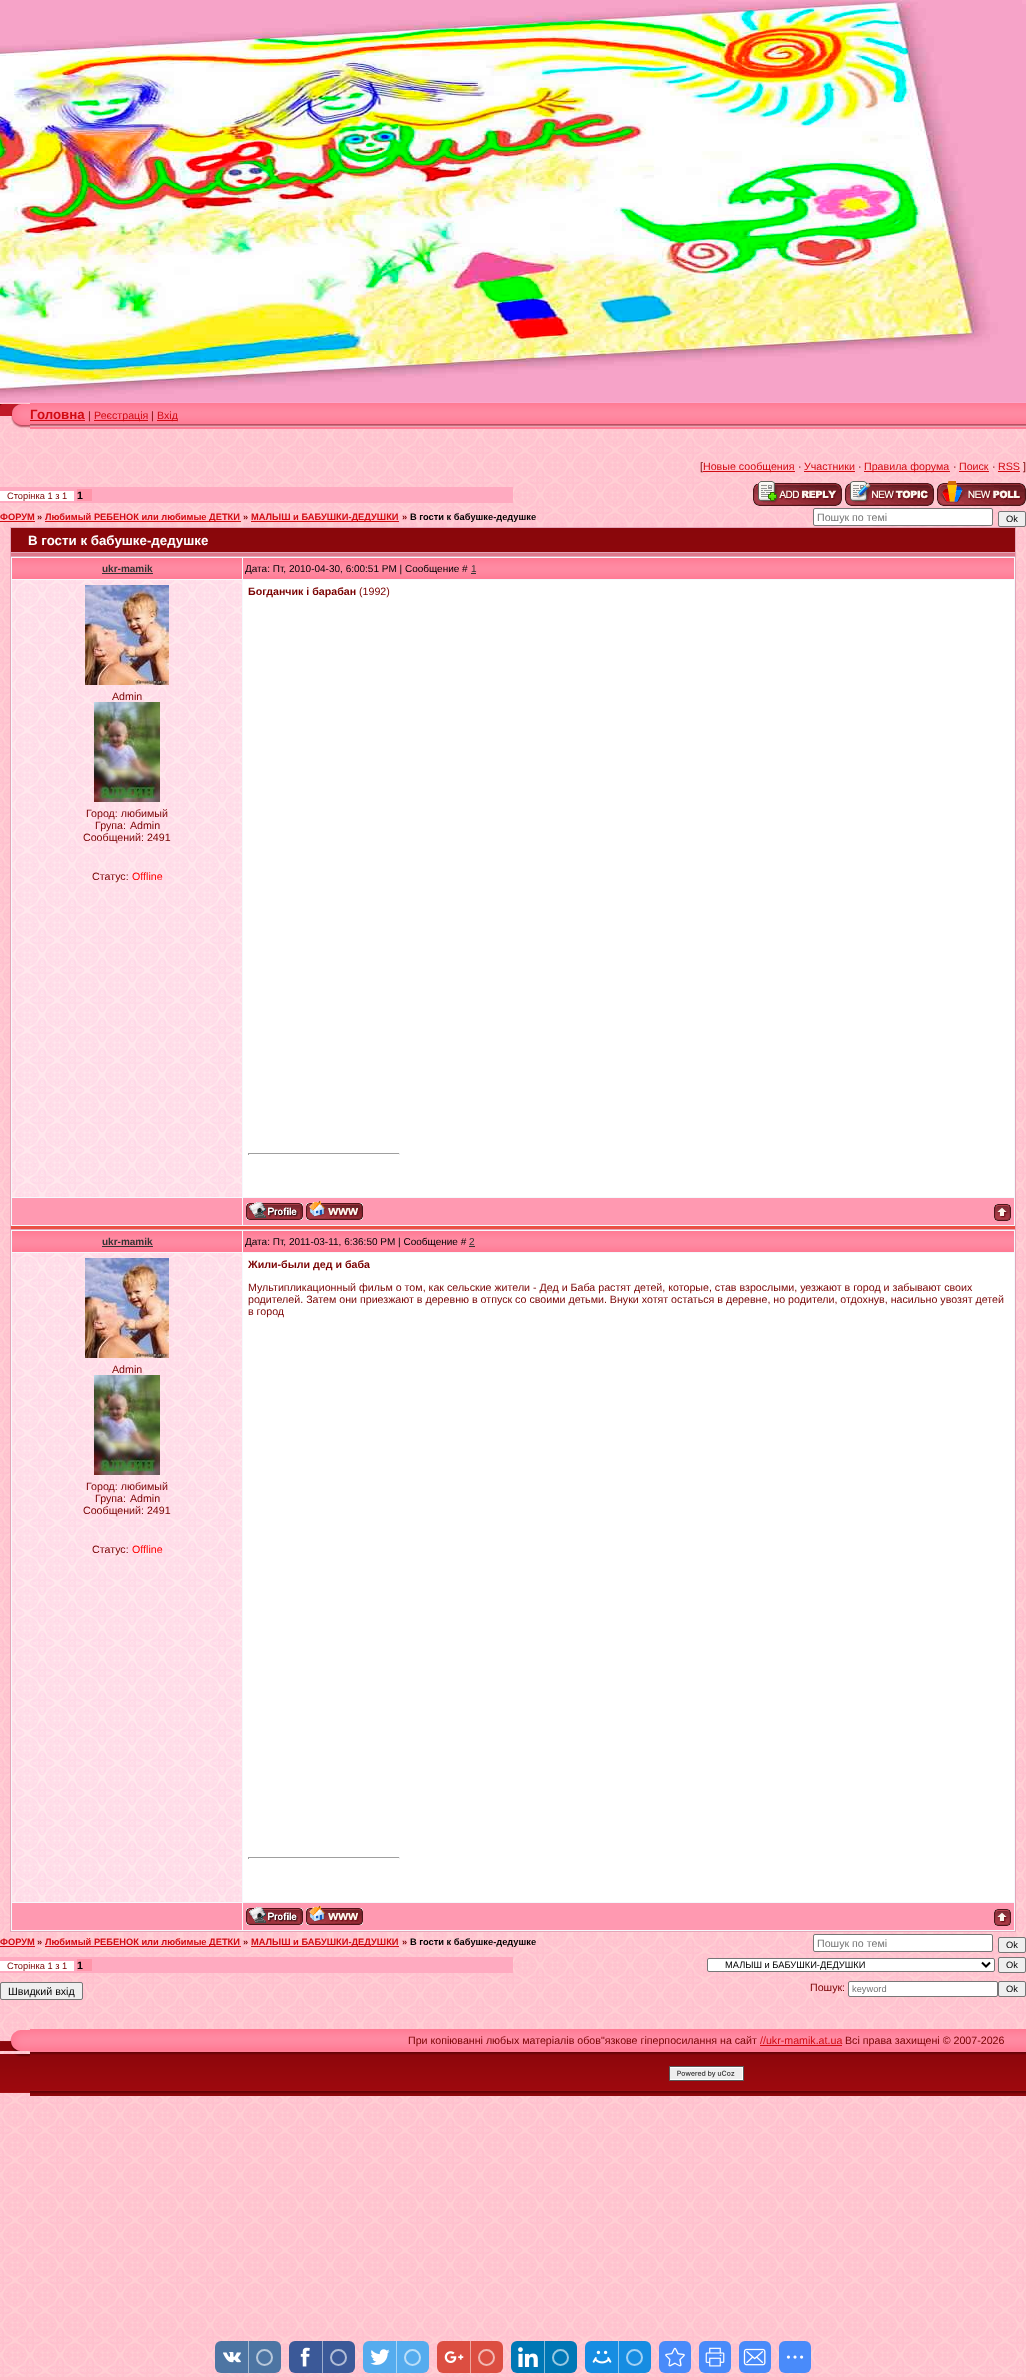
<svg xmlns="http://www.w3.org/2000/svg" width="1026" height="2377">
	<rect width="100%" height="100%" fill="#FFFFFF" />
	<image x="0" y="403" width="1026" height="1974" href="assets/img1.png" />
	<image x="0" y="0" width="1026" height="403" href="assets/img2.png" />
	<image x="0" y="404" width="30" height="24" href="assets/img3.png" />
	<image x="30" y="403" width="659" height="26" href="assets/img4.png" />
	<text x="30" y="419" font-family="Liberation Sans" font-size="13.3" font-weight="700" fill="#D10B12">Головна</text>
	<rect x="30" y="420" width="55" height="1" fill="#D10B12" />
	<text x="88" y="419" font-family="Liberation Sans" font-size="10.67" fill="#790000">|</text>
	<rect x="94" y="420" width="54" height="1" fill="#D10B12" />
	<text x="94" y="419" font-family="Liberation Sans" font-size="10.67" fill="#D10B12">Реєстрація</text>
	<text x="151" y="419" font-family="Liberation Sans" font-size="10.67" fill="#790000">|</text>
	<rect x="157" y="420" width="20" height="1" fill="#D10B12" />
	<text x="157" y="419" font-family="Liberation Sans" font-size="10.67" fill="#D10B12">Вхід</text>
	<image x="689" y="403" width="337" height="26" href="assets/img5.png" />
	<text x="700" y="470" font-family="Liberation Sans" font-size="10.67" fill="#790000">[</text>
	<rect x="703" y="471" width="92" height="1" fill="#D10B12" />
	<text x="703" y="470" font-family="Liberation Sans" font-size="10.67" fill="#D10B12">Новые сообщения</text>
	<text x="798" y="470" font-family="Liberation Sans" font-size="10.67" fill="#790000">·</text>
	<text x="804" y="470" font-family="Liberation Sans" font-size="10.67" fill="#D10B12">Участники</text>
	<rect x="804" y="471" width="51" height="1" fill="#D10B12" />
	<text x="858" y="470" font-family="Liberation Sans" font-size="10.67" fill="#790000">·</text>
	<rect x="864" y="471" width="86" height="1" fill="#D10B12" />
	<text x="864" y="470" font-family="Liberation Sans" font-size="10.67" fill="#D10B12">Правила форума</text>
	<text x="953" y="470" font-family="Liberation Sans" font-size="10.67" fill="#790000">·</text>
	<text x="959" y="470" font-family="Liberation Sans" font-size="10.67" fill="#D10B12">Поиск</text>
	<rect x="959" y="471" width="30" height="1" fill="#D10B12" />
	<text x="992" y="470" font-family="Liberation Sans" font-size="10.67" fill="#790000">·</text>
	<text x="998" y="470" font-family="Liberation Sans" font-size="10.67" fill="#D10B12">RSS</text>
	<rect x="998" y="471" width="22" height="1" fill="#D10B12" />
	<text x="1023" y="470" font-family="Liberation Sans" font-size="10.67" fill="#790000">]</text>
	<rect x="0" y="487" width="513" height="16" fill="#FFAAC0" />
	<rect x="0" y="491" width="74" height="10" fill="#FFFFFF" />
	<text x="7" y="499" font-family="Liberation Sans" font-size="9.3" fill="#790000">Сторінка 1 з 1</text>
	<rect x="77" y="489" width="15" height="12" fill="#FF95A9" />
	<text x="77" y="499" font-family="Liberation Sans" font-size="10.67" font-weight="700" fill="#000000">1</text>
	<image x="753" y="481" width="89" height="25" href="assets/img6.png" />
	<image x="845" y="481" width="89" height="25" href="assets/img7.png" />
	<image x="937" y="481" width="89" height="25" href="assets/img8.png" />
	<text x="0" y="520" font-family="Liberation Sans" font-size="9.3" font-weight="700" fill="#D10B12">ФОРУМ</text>
	<rect x="0" y="521" width="35" height="1" fill="#D10B12" />
	<text x="37" y="520" font-family="Liberation Sans" font-size="9.3" font-weight="700" fill="#790000">»</text>
	<rect x="45" y="521" width="196" height="1" fill="#D10B12" />
	<text x="45" y="520" font-family="Liberation Sans" font-size="9.3" font-weight="700" fill="#D10B12">Любимый РЕБЕНОК или любимые ДЕТКИ</text>
	<text x="243" y="520" font-family="Liberation Sans" font-size="9.3" font-weight="700" fill="#790000">»</text>
	<rect x="251" y="521" width="148" height="1" fill="#D10B12" />
	<text x="251" y="520" font-family="Liberation Sans" font-size="9.3" font-weight="700" fill="#D10B12">МАЛЫШ и БАБУШКИ-ДЕДУШКИ</text>
	<text x="402" y="520" font-family="Liberation Sans" font-size="9.3" font-weight="700" fill="#790000">»</text>
	<text x="410" y="520" font-family="Liberation Sans" font-size="9.3" font-weight="700" fill="#000000">В гости к бабушке-дедушке</text>
	<rect x="813.5" y="508.5" width="179" height="17" rx="1.5" fill="#FFFFFF" stroke="#767676" />
	<text x="817" y="521" font-family="Liberation Sans" font-size="10.67" fill="#757575">Пошук по темі</text>
	<rect x="998.5" y="511.5" width="27" height="15" rx="1.5" fill="#EFEFEF" stroke="#767676" />
	<text x="1006" y="522" font-family="Liberation Sans" font-size="9.3" fill="#000000">Ok</text>
	<rect x="10" y="527" width="1006" height="1405" fill="#E4A5B7" />
	<image x="11" y="528" width="1004" height="24" href="assets/img9.png" />
	<text x="28" y="545" font-family="Liberation Sans" font-size="13.3" font-weight="700" fill="#FFFFFF">В гости к бабушке-дедушке</text>
	<rect x="11" y="553" width="1004" height="3" fill="#DD798C" />
	<rect x="11" y="557" width="1004" height="669" fill="#F5F9FD" />
	<rect x="11" y="1226" width="1004" height="3" fill="#EB4F45" />
	<image x="12" y="558" width="230" height="21" href="assets/img10.png" />
	<text x="102" y="572" font-family="Liberation Sans" font-size="10" font-weight="700" fill="#333333">ukr-mamik</text>
	<rect x="102" y="573" width="51" height="1" fill="#333333" />
	<image x="243" y="558" width="771" height="21" href="assets/img11.png" />
	<text x="245" y="572" font-family="Liberation Sans" font-size="10" fill="#000000">Дата: Пт, 2010-04-30, 6:00:51 PM | Сообщение #</text>
	<text x="471" y="572" font-family="Liberation Sans" font-size="10" fill="#333333">1</text>
	<rect x="471" y="573" width="5" height="1" fill="#333333" />
	<rect x="243" y="580" width="771" height="617" fill="#FFFFFF" />
	<text x="248" y="595" font-family="Liberation Sans" font-size="10.67" font-weight="700" fill="#790000">Богданчик і барабан</text>
	<text x="359" y="595" font-family="Liberation Sans" font-size="10.67" fill="#790000">(1992)</text>
	<rect x="248" y="1153" width="152" height="1" fill="#9F9F9F" />
	<rect x="399" y="1153" width="1" height="2" fill="#EEEEEE" />
	<rect x="248" y="1153" width="1" height="2" fill="#9F9F9F" />
	<image x="12" y="580" width="230" height="617" href="assets/img12.png" />
	<image x="85" y="585" width="84" height="100" href="assets/img13.png" />
	<text x="112" y="700" font-family="Liberation Sans" font-size="10.67" fill="#790000">Admin</text>
	<image x="94" y="702" width="66" height="100" href="assets/img14.png" />
	<g font-family="Liberation Sans" font-size="10.67" fill="#790000">
		<text x="86" y="817">Город: любимый</text>
		<text x="95" y="829" word-spacing="1">Група: Admin</text>
		<text x="83" y="841">Сообщений: 2491</text>
		<text x="92" y="880">Статус:</text>
	</g>
	<text x="132" y="880" font-family="Liberation Sans" font-size="10.67" fill="#FF0000">Offline</text>
	<rect x="12" y="1198" width="230" height="27" fill="#FF99B1" />
	<rect x="243" y="1198" width="771" height="27" fill="#FF99B1" />
	<image x="246" y="1202" width="57" height="18" href="assets/img15.png" />
	<image x="306" y="1201" width="57" height="19" href="assets/img16.png" />
	<image x="994" y="1204" width="17" height="17" href="assets/img17.png" />
	<rect x="11" y="1230" width="1004" height="701" fill="#F5F9FD" />
	<image x="12" y="1231" width="230" height="21" href="assets/img10.png" />
	<text x="102" y="1245" font-family="Liberation Sans" font-size="10" font-weight="700" fill="#333333">ukr-mamik</text>
	<rect x="102" y="1246" width="51" height="1" fill="#333333" />
	<image x="243" y="1231" width="771" height="21" href="assets/img11.png" />
	<text x="245" y="1245" font-family="Liberation Sans" font-size="10" fill="#000000">Дата: Пт, 2011-03-11, 6:36:50 PM | Сообщение #</text>
	<text x="469" y="1245" font-family="Liberation Sans" font-size="10" fill="#333333">2</text>
	<rect x="469" y="1246" width="6" height="1" fill="#333333" />
	<rect x="243" y="1253" width="771" height="649" fill="#FFFFFF" />
	<text x="248" y="1268" font-family="Liberation Sans" font-size="10.67" font-weight="700" fill="#790000">Жили-были дед и баба</text>
	<g font-family="Liberation Sans" font-size="10.67" fill="#790000">
		<text x="248" y="1291">Мультипликационный фильм о том, как сельские жители - Дед и Баба растят детей, которые, став взрослыми, уезжают в город и забывают своих</text>
		<text x="248" y="1303">родителей. Затем они приезжают в деревню в отпуск со своими детьми. Внуки хотят остаться в деревне, но родители, отдохнув, насильно увозят детей</text>
		<text x="248" y="1315">в город</text>
	</g>
	<rect x="248" y="1857" width="152" height="1" fill="#9F9F9F" />
	<rect x="399" y="1857" width="1" height="2" fill="#EEEEEE" />
	<rect x="248" y="1857" width="1" height="2" fill="#9F9F9F" />
	<image x="12" y="1253" width="230" height="649" href="assets/img18.png" />
	<image x="85" y="1258" width="84" height="100" href="assets/img13.png" />
	<text x="112" y="1373" font-family="Liberation Sans" font-size="10.67" fill="#790000">Admin</text>
	<image x="94" y="1375" width="66" height="100" href="assets/img14.png" />
	<g font-family="Liberation Sans" font-size="10.67" fill="#790000">
		<text x="86" y="1490">Город: любимый</text>
		<text x="95" y="1502" word-spacing="1">Група: Admin</text>
		<text x="83" y="1514">Сообщений: 2491</text>
		<text x="92" y="1553">Статус:</text>
	</g>
	<text x="132" y="1553" font-family="Liberation Sans" font-size="10.67" fill="#FF0000">Offline</text>
	<rect x="12" y="1903" width="230" height="27" fill="#FF99B1" />
	<rect x="243" y="1903" width="771" height="27" fill="#FF99B1" />
	<image x="246" y="1907" width="57" height="18" href="assets/img15.png" />
	<image x="306" y="1906" width="57" height="19" href="assets/img16.png" />
	<image x="994" y="1909" width="17" height="17" href="assets/img17.png" />
	<text x="0" y="1945" font-family="Liberation Sans" font-size="9.3" font-weight="700" fill="#D10B12">ФОРУМ</text>
	<rect x="0" y="1946" width="35" height="1" fill="#D10B12" />
	<text x="37" y="1945" font-family="Liberation Sans" font-size="9.3" font-weight="700" fill="#790000">»</text>
	<rect x="45" y="1946" width="196" height="1" fill="#D10B12" />
	<text x="45" y="1945" font-family="Liberation Sans" font-size="9.3" font-weight="700" fill="#D10B12">Любимый РЕБЕНОК или любимые ДЕТКИ</text>
	<text x="243" y="1945" font-family="Liberation Sans" font-size="9.3" font-weight="700" fill="#790000">»</text>
	<rect x="251" y="1946" width="148" height="1" fill="#D10B12" />
	<text x="251" y="1945" font-family="Liberation Sans" font-size="9.3" font-weight="700" fill="#D10B12">МАЛЫШ и БАБУШКИ-ДЕДУШКИ</text>
	<text x="402" y="1945" font-family="Liberation Sans" font-size="9.3" font-weight="700" fill="#790000">»</text>
	<text x="410" y="1945" font-family="Liberation Sans" font-size="9.3" font-weight="700" fill="#000000">В гости к бабушке-дедушке</text>
	<rect x="813.5" y="1934.5" width="179" height="17" rx="1.5" fill="#FFFFFF" stroke="#767676" />
	<text x="817" y="1947" font-family="Liberation Sans" font-size="10.67" fill="#757575">Пошук по темі</text>
	<rect x="998.5" y="1937.5" width="27" height="15" rx="1.5" fill="#EFEFEF" stroke="#767676" />
	<text x="1006" y="1948" font-family="Liberation Sans" font-size="9.3" fill="#000000">Ok</text>
	<rect x="0" y="1957" width="513" height="16" fill="#FFAAC0" />
	<rect x="0" y="1961" width="74" height="10" fill="#FFFFFF" />
	<text x="7" y="1969" font-family="Liberation Sans" font-size="9.3" fill="#790000">Сторінка 1 з 1</text>
	<rect x="77" y="1959" width="15" height="12" fill="#FF95A9" />
	<text x="77" y="1969" font-family="Liberation Sans" font-size="10.67" font-weight="700" fill="#000000">1</text>
	<rect x="707.5" y="1958.5" width="287" height="13" rx="1.5" fill="#FFFFFF" stroke="#767676" />
	<path d="M982 1962.5L986 1966.5L990 1962.5" fill="none" stroke="#000000" stroke-width="2" />
	<text x="725" y="1968" font-family="Liberation Sans" font-size="9.3" fill="#000000">МАЛЫШ и БАБУШКИ-ДЕДУШКИ</text>
	<rect x="998.5" y="1957.5" width="27" height="15" rx="1.5" fill="#EFEFEF" stroke="#767676" />
	<text x="1006" y="1968" font-family="Liberation Sans" font-size="9.3" fill="#000000">Ok</text>
	<rect x="0.5" y="1982.5" width="82" height="17" rx="1.5" fill="#EFEFEF" stroke="#767676" />
	<text x="8" y="1995" font-family="Liberation Sans" font-size="10.67" fill="#000000">Швидкий вхід</text>
	<text x="810" y="1991" font-family="Liberation Sans" font-size="10.67" fill="#790000">Пошук:</text>
	<rect x="848.5" y="1981.5" width="149" height="15" rx="1.5" fill="#FFFFFF" stroke="#767676" />
	<text x="852" y="1992" font-family="Liberation Sans" font-size="9.3" fill="#757575">keyword</text>
	<rect x="998.5" y="1981.5" width="27" height="15" rx="1.5" fill="#EFEFEF" stroke="#767676" />
	<text x="1006" y="1992" font-family="Liberation Sans" font-size="9.3" fill="#000000">Ok</text>
	<image x="0" y="2030" width="30" height="21" href="assets/img19.png" />
	<image x="30" y="2029" width="996" height="23" href="assets/img20.png" />
	<text x="408" y="2044" font-family="Liberation Sans" font-size="10.67" fill="#790000">При копіюванні любых матеріалів обов"язкове гіперпосилання на сайт</text>
	<text x="760" y="2044" font-family="Liberation Sans" font-size="10.67" fill="#D10B12">//ukr-mamik.at.ua</text>
	<rect x="760" y="2045" width="82" height="1" fill="#D10B12" />
	<text x="845" y="2044" font-family="Liberation Sans" font-size="10.67" fill="#790000">Всі права захищені © 2007-2026</text>
	<image x="0" y="2054" width="30" height="39" href="assets/img21.png" />
	<image x="30" y="2052" width="996" height="44" href="assets/img22.png" />
	<image x="669" y="2066" width="75" height="15" href="assets/img23.png" />
	<rect x="215" y="2341" width="66" height="32" rx="6" fill="#4D75A3" />
	<image x="223" y="2352" width="18" height="11" href="assets/img24.png" />
	<rect x="248" y="2341" width="1" height="32" fill="#A6BAD1" />
	<circle cx="264.5" cy="2357.5" r="7.5" fill="none" stroke="#B8C8DA" stroke-width="2" />
	<rect x="289" y="2341" width="66" height="32" rx="6" fill="#3B5998" />
	<image x="300" y="2347" width="10" height="20" href="assets/img25.png" />
	<rect x="322" y="2341" width="1" height="32" fill="#9DACCC" />
	<circle cx="338.5" cy="2357.5" r="7.5" fill="none" stroke="#B1BDD6" stroke-width="2" />
	<rect x="363" y="2341" width="66" height="32" rx="6" fill="#55ACEE" />
	<image x="370" y="2349" width="20" height="16" href="assets/img26.png" />
	<rect x="396" y="2341" width="1" height="32" fill="#AAD6F7" />
	<circle cx="412.5" cy="2357.5" r="7.5" fill="none" stroke="#BBDEF8" stroke-width="2" />
	<rect x="437" y="2341" width="66" height="32" rx="6" fill="#DC4E41" />
	<image x="444" y="2351" width="20" height="12" href="assets/img27.png" />
	<rect x="470" y="2341" width="1" height="32" fill="#EEA7A0" />
	<circle cx="486.5" cy="2357.5" r="7.5" fill="none" stroke="#F1B8B3" stroke-width="2" />
	<rect x="511" y="2341" width="66" height="32" rx="6" fill="#0077B5" />
	<image x="518" y="2347" width="20" height="20" href="assets/img28.png" />
	<rect x="544" y="2341" width="1" height="32" fill="#80BBDA" />
	<circle cx="560.5" cy="2357.5" r="7.5" fill="none" stroke="#99C9E1" stroke-width="2" />
	<rect x="585" y="2341" width="66" height="32" rx="6" fill="#168DE2" />
	<image x="592" y="2350" width="20" height="14" href="assets/img29.png" />
	<rect x="618" y="2341" width="1" height="32" fill="#8BC6F1" />
	<circle cx="634.5" cy="2357.5" r="7.5" fill="none" stroke="#A2D1F3" stroke-width="2" />
	<rect x="659" y="2341" width="32" height="32" rx="6" fill="#498BFA" />
	<image x="665" y="2347" width="20" height="20" href="assets/img30.png" />
	<rect x="699" y="2341" width="32" height="32" rx="6" fill="#498BFA" />
	<image x="705" y="2347" width="20" height="20" href="assets/img31.png" />
	<rect x="739" y="2341" width="32" height="32" rx="6" fill="#498BFA" />
	<image x="743" y="2348" width="23" height="18" href="assets/img32.png" />
	<rect x="779" y="2341" width="32" height="32" rx="6" fill="#498BFA" />
	<image x="786" y="2355" width="18" height="4" href="assets/img33.png" />
</svg>
